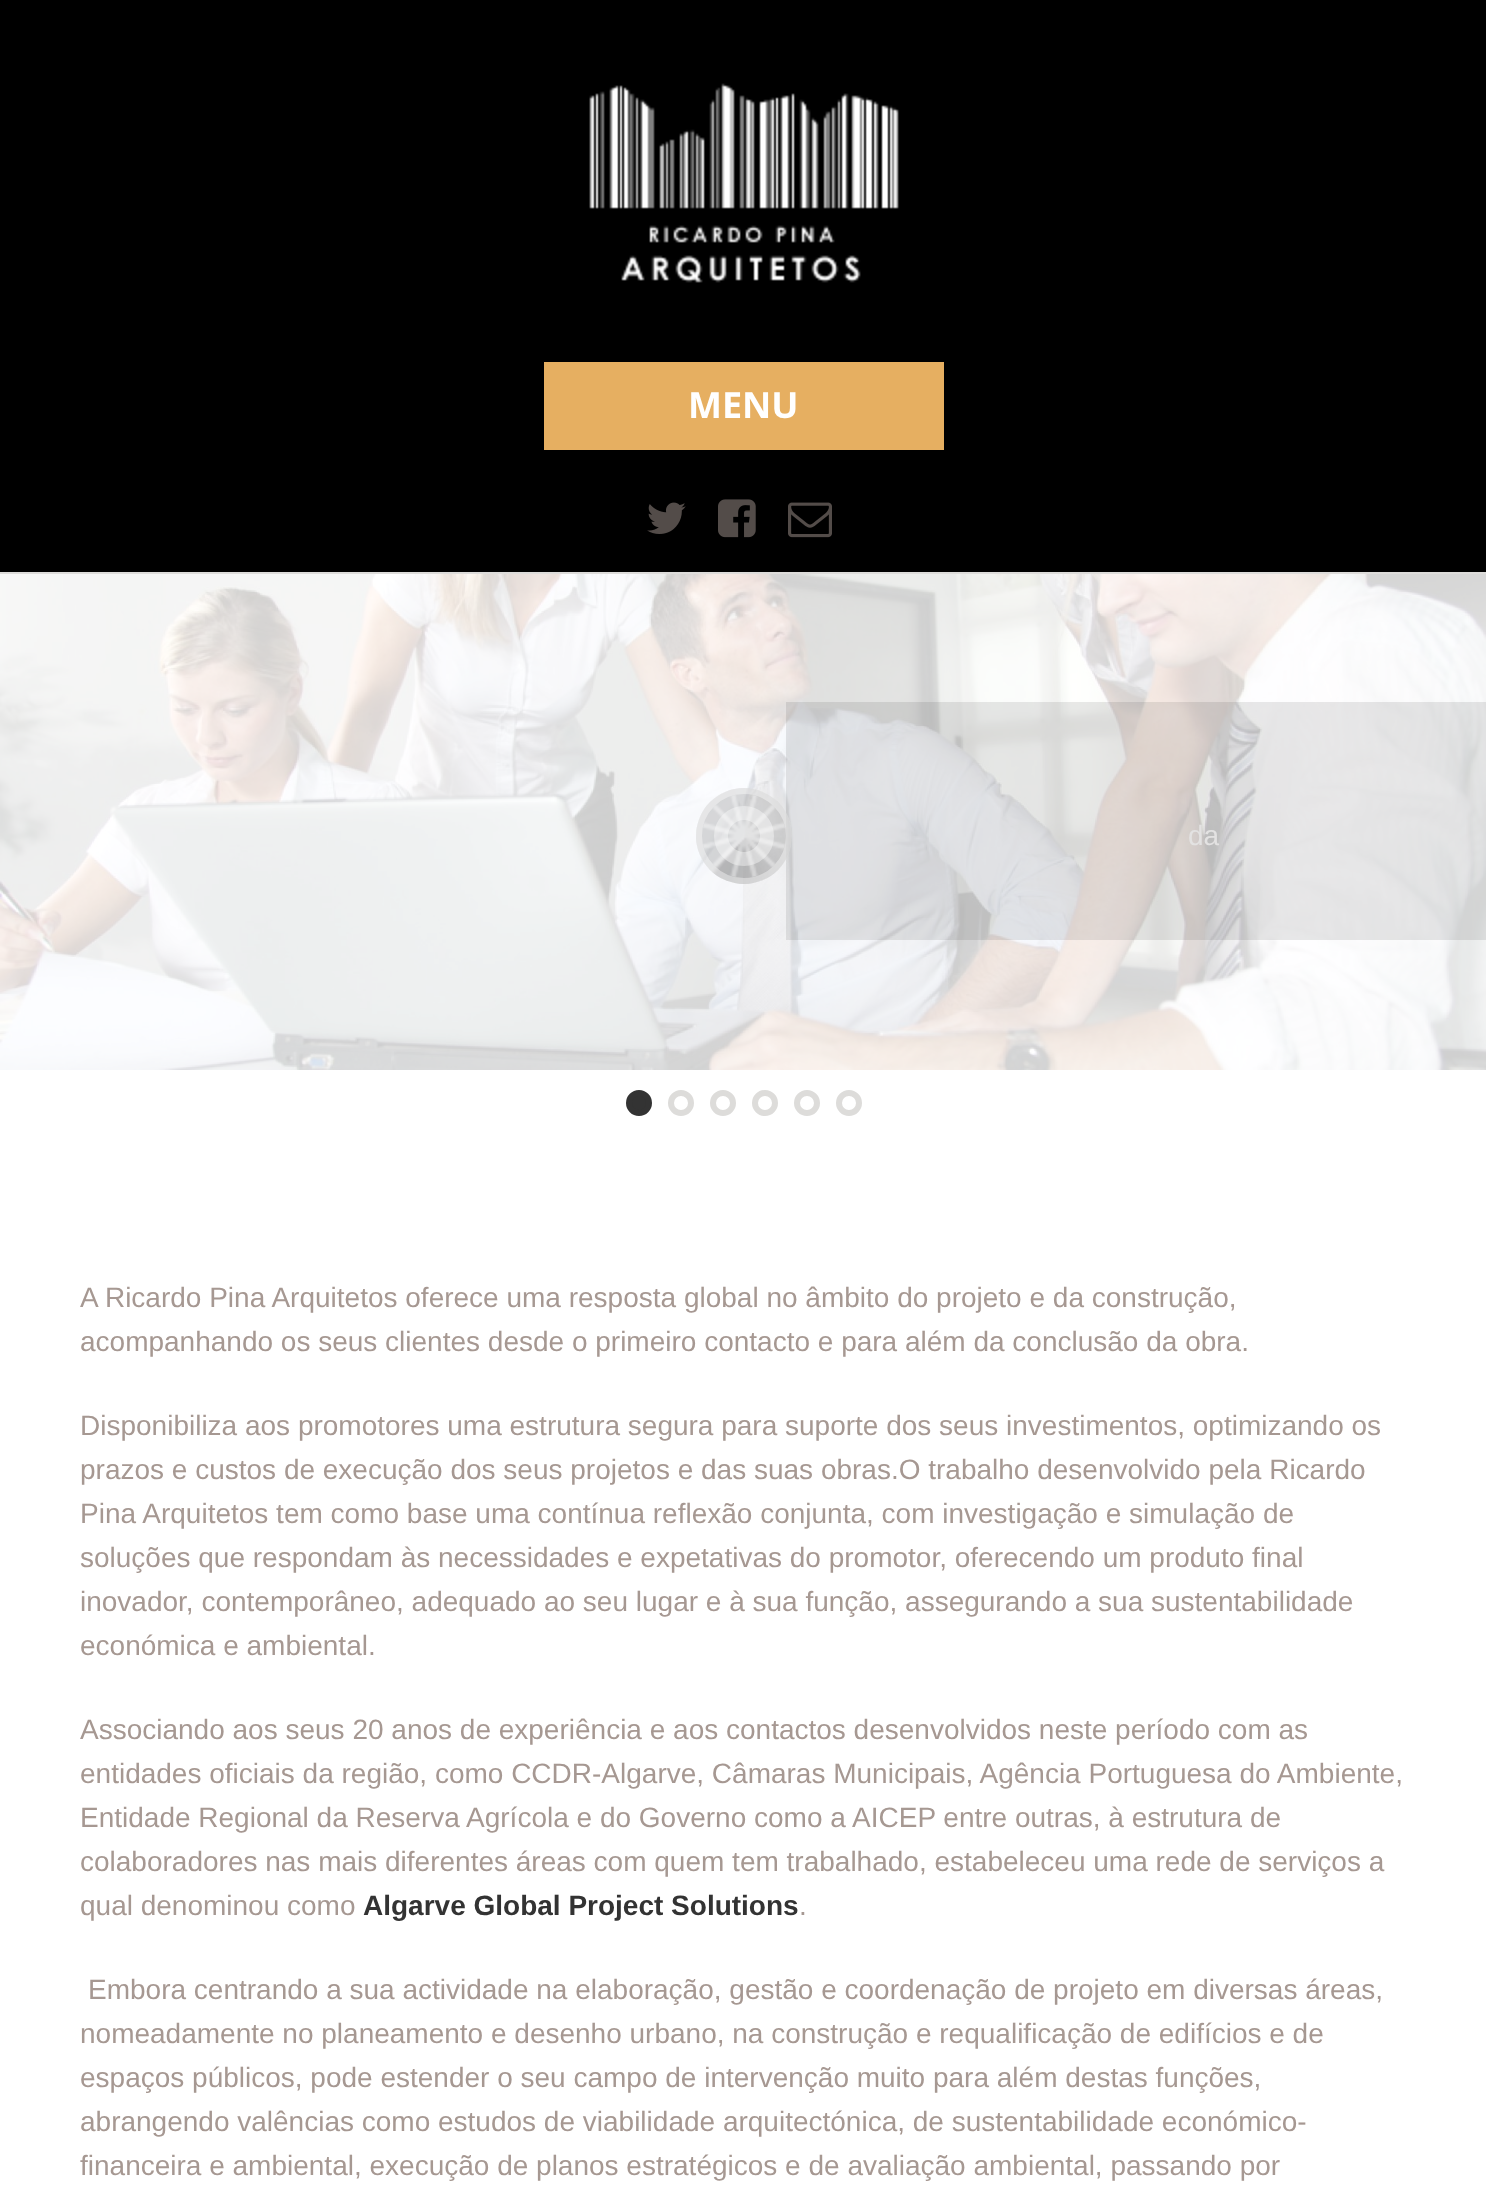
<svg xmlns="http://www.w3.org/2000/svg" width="1486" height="2209">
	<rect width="100%" height="100%" fill="#FFFFFF" />
	<rect x="0" y="0" width="1486" height="572" fill="#000000" />
	<rect x="0" y="572" width="1486" height="2" fill="#DDDCDA" />
	<image x="589" y="83" width="310" height="200" href="assets/img1.png" />
	<rect x="544" y="362" width="400" height="88" fill="#E6AF61" />
	<text x="688" y="418" font-family="Open Sans" font-size="36" font-weight="700" fill="#FFFFFF">MENU</text>
	<image x="647" y="502" width="39" height="32" href="assets/img2.png" />
	<image x="718" y="499" width="38" height="39" href="assets/img3.png" />
	<image x="788" y="502" width="44" height="36" href="assets/img4.png" />
	<image x="0" y="574" width="1486" height="496" href="assets/img7.png" />
	<rect x="786" y="702" width="700" height="238" fill="#000000" fill-opacity="0.09" />
	<image x="696" y="788" width="96" height="96" href="assets/img5.png" />
	<circle cx="744" cy="836" r="45" fill="none" stroke="#FFFFFF" stroke-opacity="0.4" stroke-width="6" />
	<image x="703" y="795" width="82" height="82" href="assets/img6.png" />
	<circle cx="744" cy="836" r="23" fill="none" stroke="#FFFFFF" stroke-opacity="0.4" stroke-width="14" />
	<text x="1188" y="845" font-family="Liberation Sans" font-size="28" fill="#E3E2E2">da</text>
	<circle cx="639" cy="1103" r="10" fill="#333333" stroke="#333333" stroke-width="6" />
	<circle cx="681" cy="1103" r="10" fill="none" stroke="#DDDCDA" stroke-width="6" />
	<circle cx="723" cy="1103" r="10" fill="none" stroke="#DDDCDA" stroke-width="6" />
	<circle cx="765" cy="1103" r="10" fill="none" stroke="#DDDCDA" stroke-width="6" />
	<circle cx="807" cy="1103" r="10" fill="none" stroke="#DDDCDA" stroke-width="6" />
	<circle cx="849" cy="1103" r="10" fill="none" stroke="#DDDCDA" stroke-width="6" />
	<g font-family="Liberation Sans" font-size="28" fill="#A69892">
		<text x="80" y="1307">A Ricardo Pina Arquitetos oferece uma resposta global no âmbito do projeto e da construção,</text>
		<text x="80" y="1351">acompanhando os seus clientes desde o primeiro contacto e para além da conclusão da obra.</text>
		<text x="80" y="1435">Disponibiliza aos promotores uma estrutura segura para suporte dos seus investimentos, optimizando os</text>
		<text x="80" y="1479">prazos e custos de execução dos seus projetos e das suas obras.O trabalho desenvolvido pela Ricardo</text>
		<text x="80" y="1523">Pina Arquitetos tem como base uma contínua reflexão conjunta, com investigação e simulação de</text>
		<text x="80" y="1567">soluções que respondam às necessidades e expetativas do promotor, oferecendo um produto final</text>
		<text x="80" y="1611">inovador, contemporâneo, adequado ao seu lugar e à sua função, assegurando a sua sustentabilidade</text>
		<text x="80" y="1655">económica e ambiental.</text>
		<text x="80" y="1739">Associando aos seus 20 anos de experiência e aos contactos desenvolvidos neste período com as</text>
		<text x="80" y="1783">entidades oficiais da região, como CCDR-Algarve, Câmaras Municipais, Agência Portuguesa do Ambiente,</text>
		<text x="80" y="1827">Entidade Regional da Reserva Agrícola e do Governo como a AICEP entre outras, à estrutura de</text>
		<text x="80" y="1871">colaboradores nas mais diferentes áreas com quem tem trabalhado, estabeleceu uma rede de serviços a</text>
		<text x="80" y="1915">qual denominou como</text>
	</g>
	<text x="363" y="1915" font-family="Liberation Sans" font-size="28" font-weight="700" fill="#333333">Algarve Global Project Solutions</text>
	<g font-family="Liberation Sans" font-size="28" fill="#A69892">
		<text x="799" y="1915">.</text>
		<text x="88" y="1999">Embora centrando a sua actividade na elaboração, gestão e coordenação de projeto em diversas áreas,</text>
		<text x="80" y="2043">nomeadamente no planeamento e desenho urbano, na construção e requalificação de edifícios e de</text>
		<text x="80" y="2087">espaços públicos, pode estender o seu campo de intervenção muito para além destas funções,</text>
		<text x="80" y="2131">abrangendo valências como estudos de viabilidade arquitectónica, de sustentabilidade económico-</text>
		<text x="80" y="2175">financeira e ambiental, execução de planos estratégicos e de avaliação ambiental, passando por</text>
	</g>
</svg>
